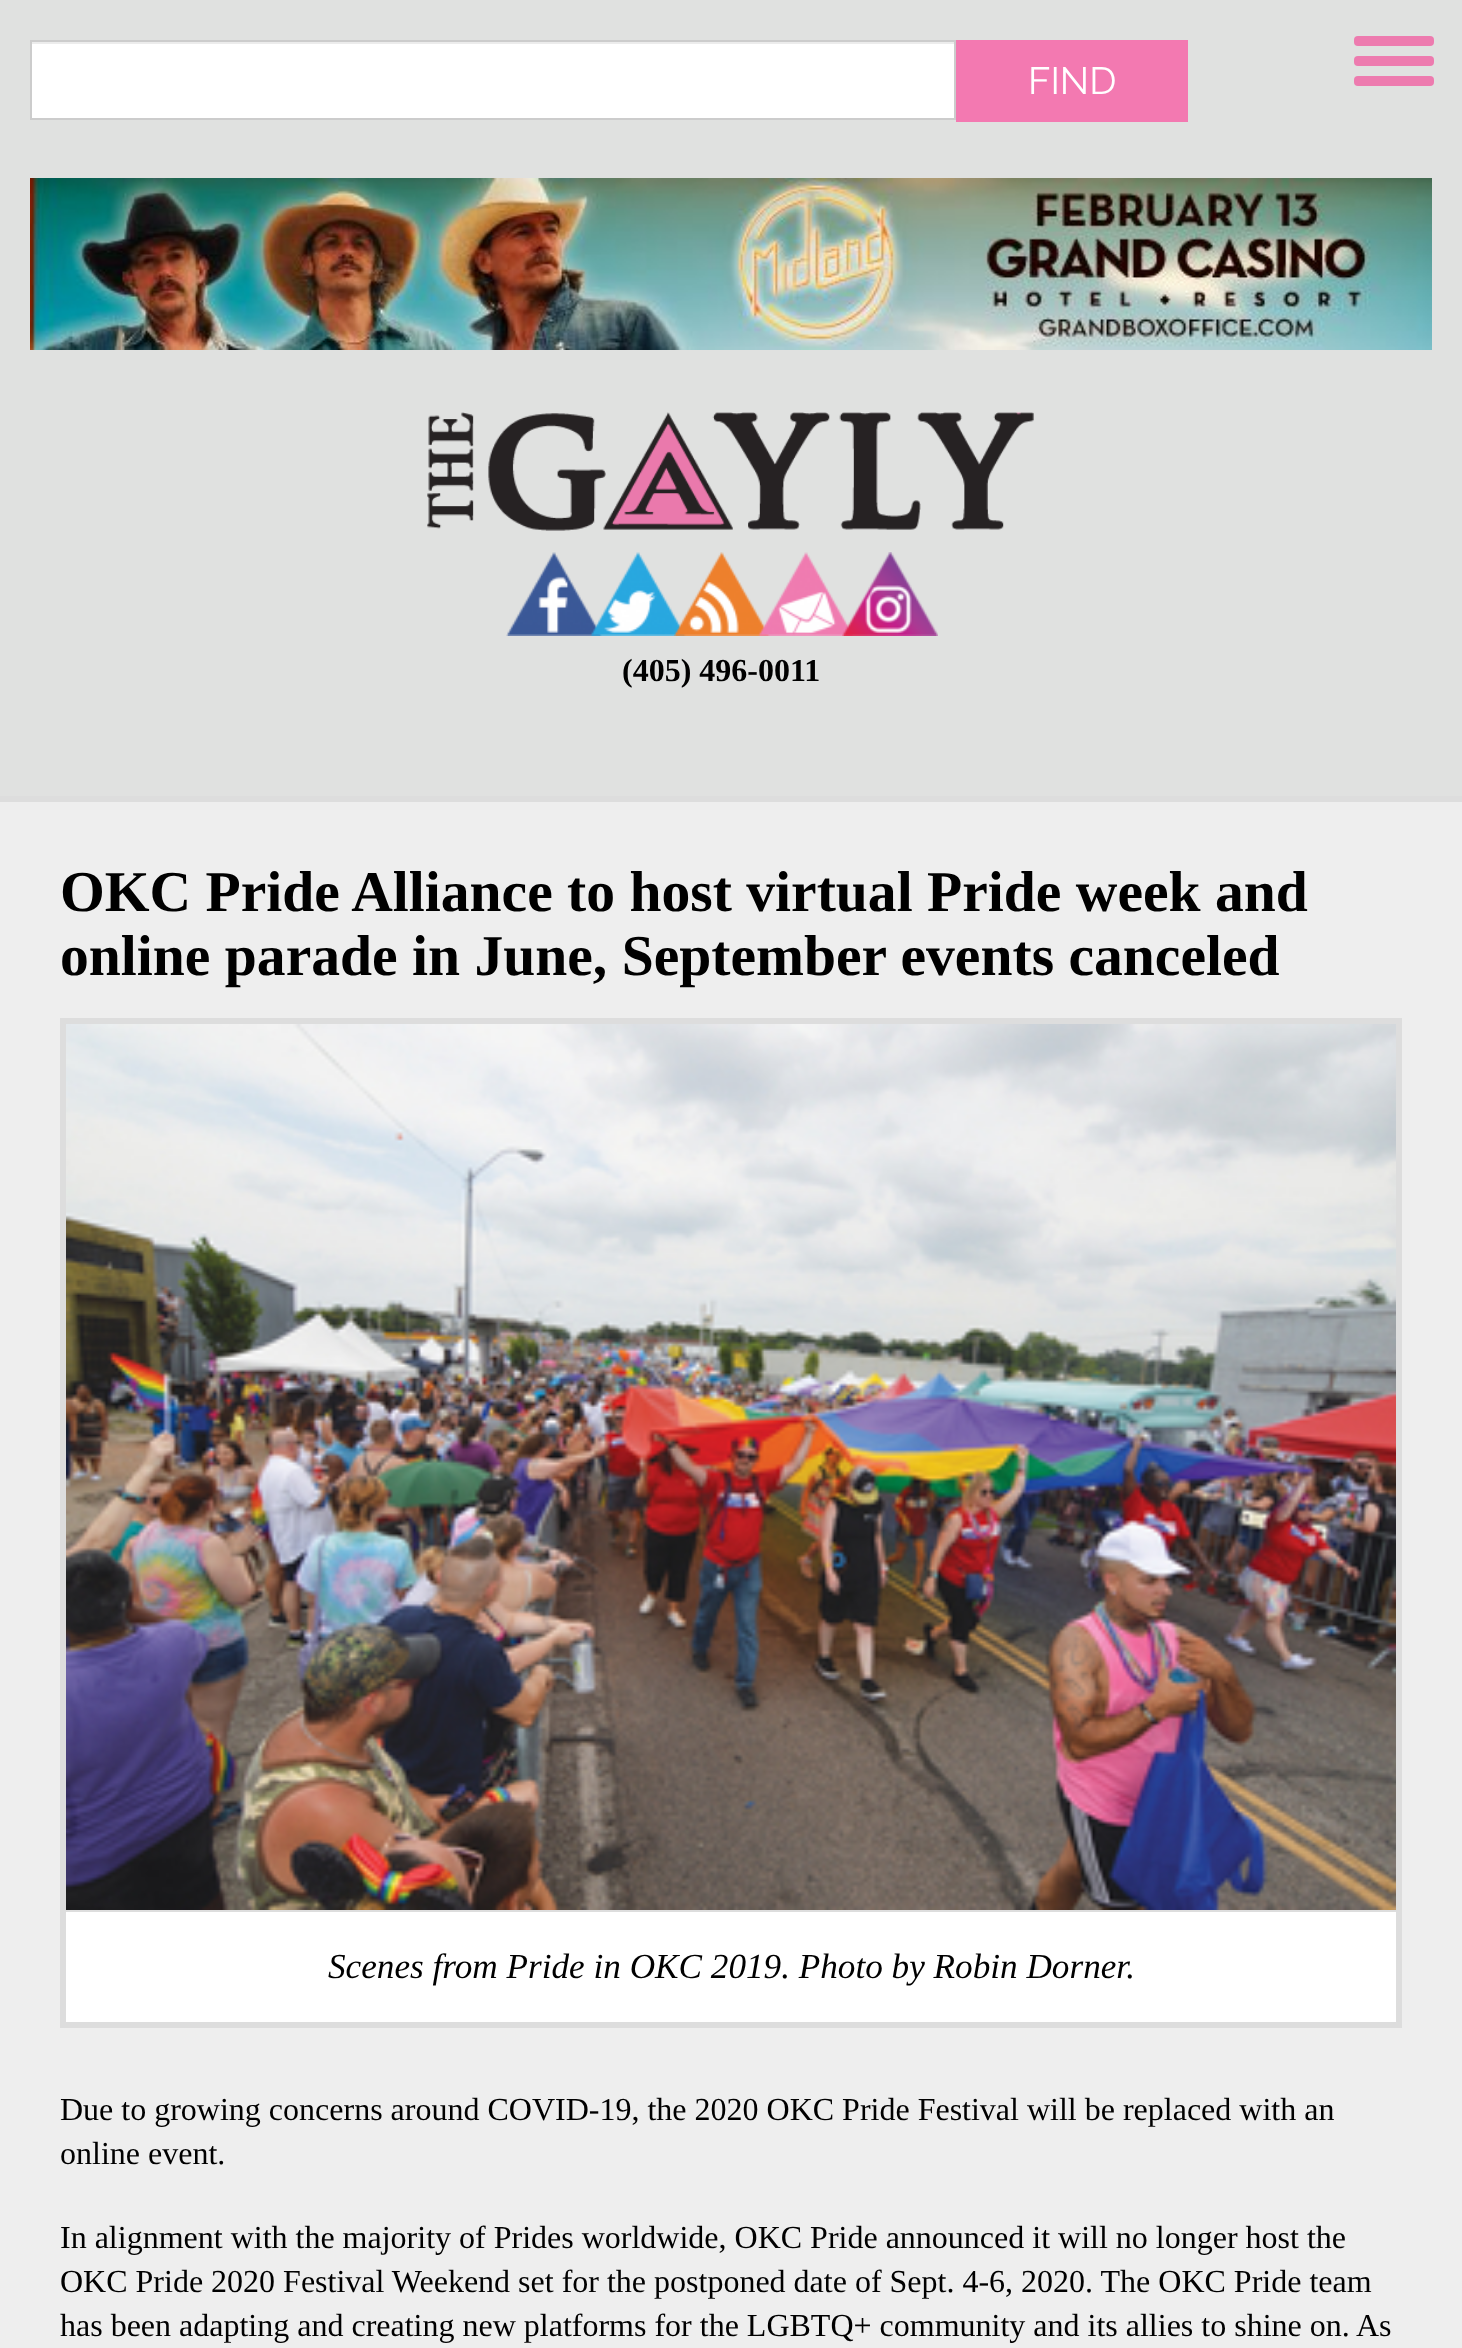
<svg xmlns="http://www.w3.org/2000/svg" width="1462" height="2348">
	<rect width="100%" height="100%" fill="#EEEEEE" />
	<rect x="0" y="0" width="1462" height="796" fill="#E0E1E0" />
	<rect x="32" y="44" width="922" height="74" fill="#FFFFFF" />
	<rect x="32" y="42" width="922" height="2" fill="#ECECEC" />
	<rect x="31" y="41" width="924" height="78" fill="none" stroke="#CCCCCC" stroke-width="2" />
	<rect x="956" y="40" width="232" height="82" fill="#F379B1" />
	<text x="1028" y="94" font-family="Raleway" font-size="38" fill="#FFFFFF">FIND</text>
	<rect x="1354" y="36" width="80" height="10" rx="4" fill="#ED7BAF" />
	<rect x="1354" y="56" width="80" height="10" rx="4" fill="#ED7BAF" />
	<rect x="1354" y="76" width="80" height="10" rx="4" fill="#ED7BAF" />
	<rect x="0" y="796" width="1462" height="6" fill="#DDDDDD" />
	<image x="30" y="178" width="1402" height="172" href="assets/img1.png" />
	<image x="427" y="412" width="607" height="119" href="assets/img2.png" />
	<image x="506" y="552" width="96" height="84" href="assets/img3.png" />
	<image x="590" y="552" width="96" height="84" href="assets/img4.png" />
	<image x="674" y="552" width="96" height="84" href="assets/img5.png" />
	<image x="758" y="552" width="96" height="84" href="assets/img6.png" />
	<image x="842" y="552" width="96" height="84" href="assets/img7.png" />
	<text x="622" y="681" font-family="Liberation Serif" font-size="32" font-weight="700" fill="#000000">(405) 496-0011</text>
	<g font-family="Liberation Serif" font-size="57.6" font-weight="700" fill="#000000">
		<text x="60" y="911">OKC Pride Alliance to host virtual Pride week and</text>
		<text x="60" y="975">online parade in June, September events canceled</text>
	</g>
	<rect x="66" y="1912" width="1330" height="110" fill="#FFFFFF" />
	<rect x="63" y="1021" width="1336" height="1004" fill="none" stroke="#DDDDDD" stroke-width="6" />
	<rect x="66" y="1910" width="1330" height="2" fill="#DDDDDD" />
	<image x="66" y="1024" width="1330" height="886" href="assets/img8.png" />
	<text x="328" y="1978" font-family="Liberation Serif" font-size="35.2" font-style="italic" fill="#000000">Scenes from Pride in OKC 2019. Photo by Robin Dorner.</text>
	<g font-family="Liberation Serif" font-size="32" fill="#000000">
		<text x="60" y="2120">Due to growing concerns around COVID-19, the 2020 OKC Pride Festival will be replaced with an</text>
		<text x="60" y="2164">online event.</text>
		<text x="60" y="2248">In alignment with the majority of Prides worldwide, OKC Pride announced it will no longer host the</text>
		<text x="60" y="2292">OKC Pride 2020 Festival Weekend set for the postponed date of Sept. 4-6, 2020. The OKC Pride team</text>
		<text x="60" y="2336">has been adapting and creating new platforms for the LGBTQ+ community and its allies to shine on. As</text>
	</g>
</svg>
